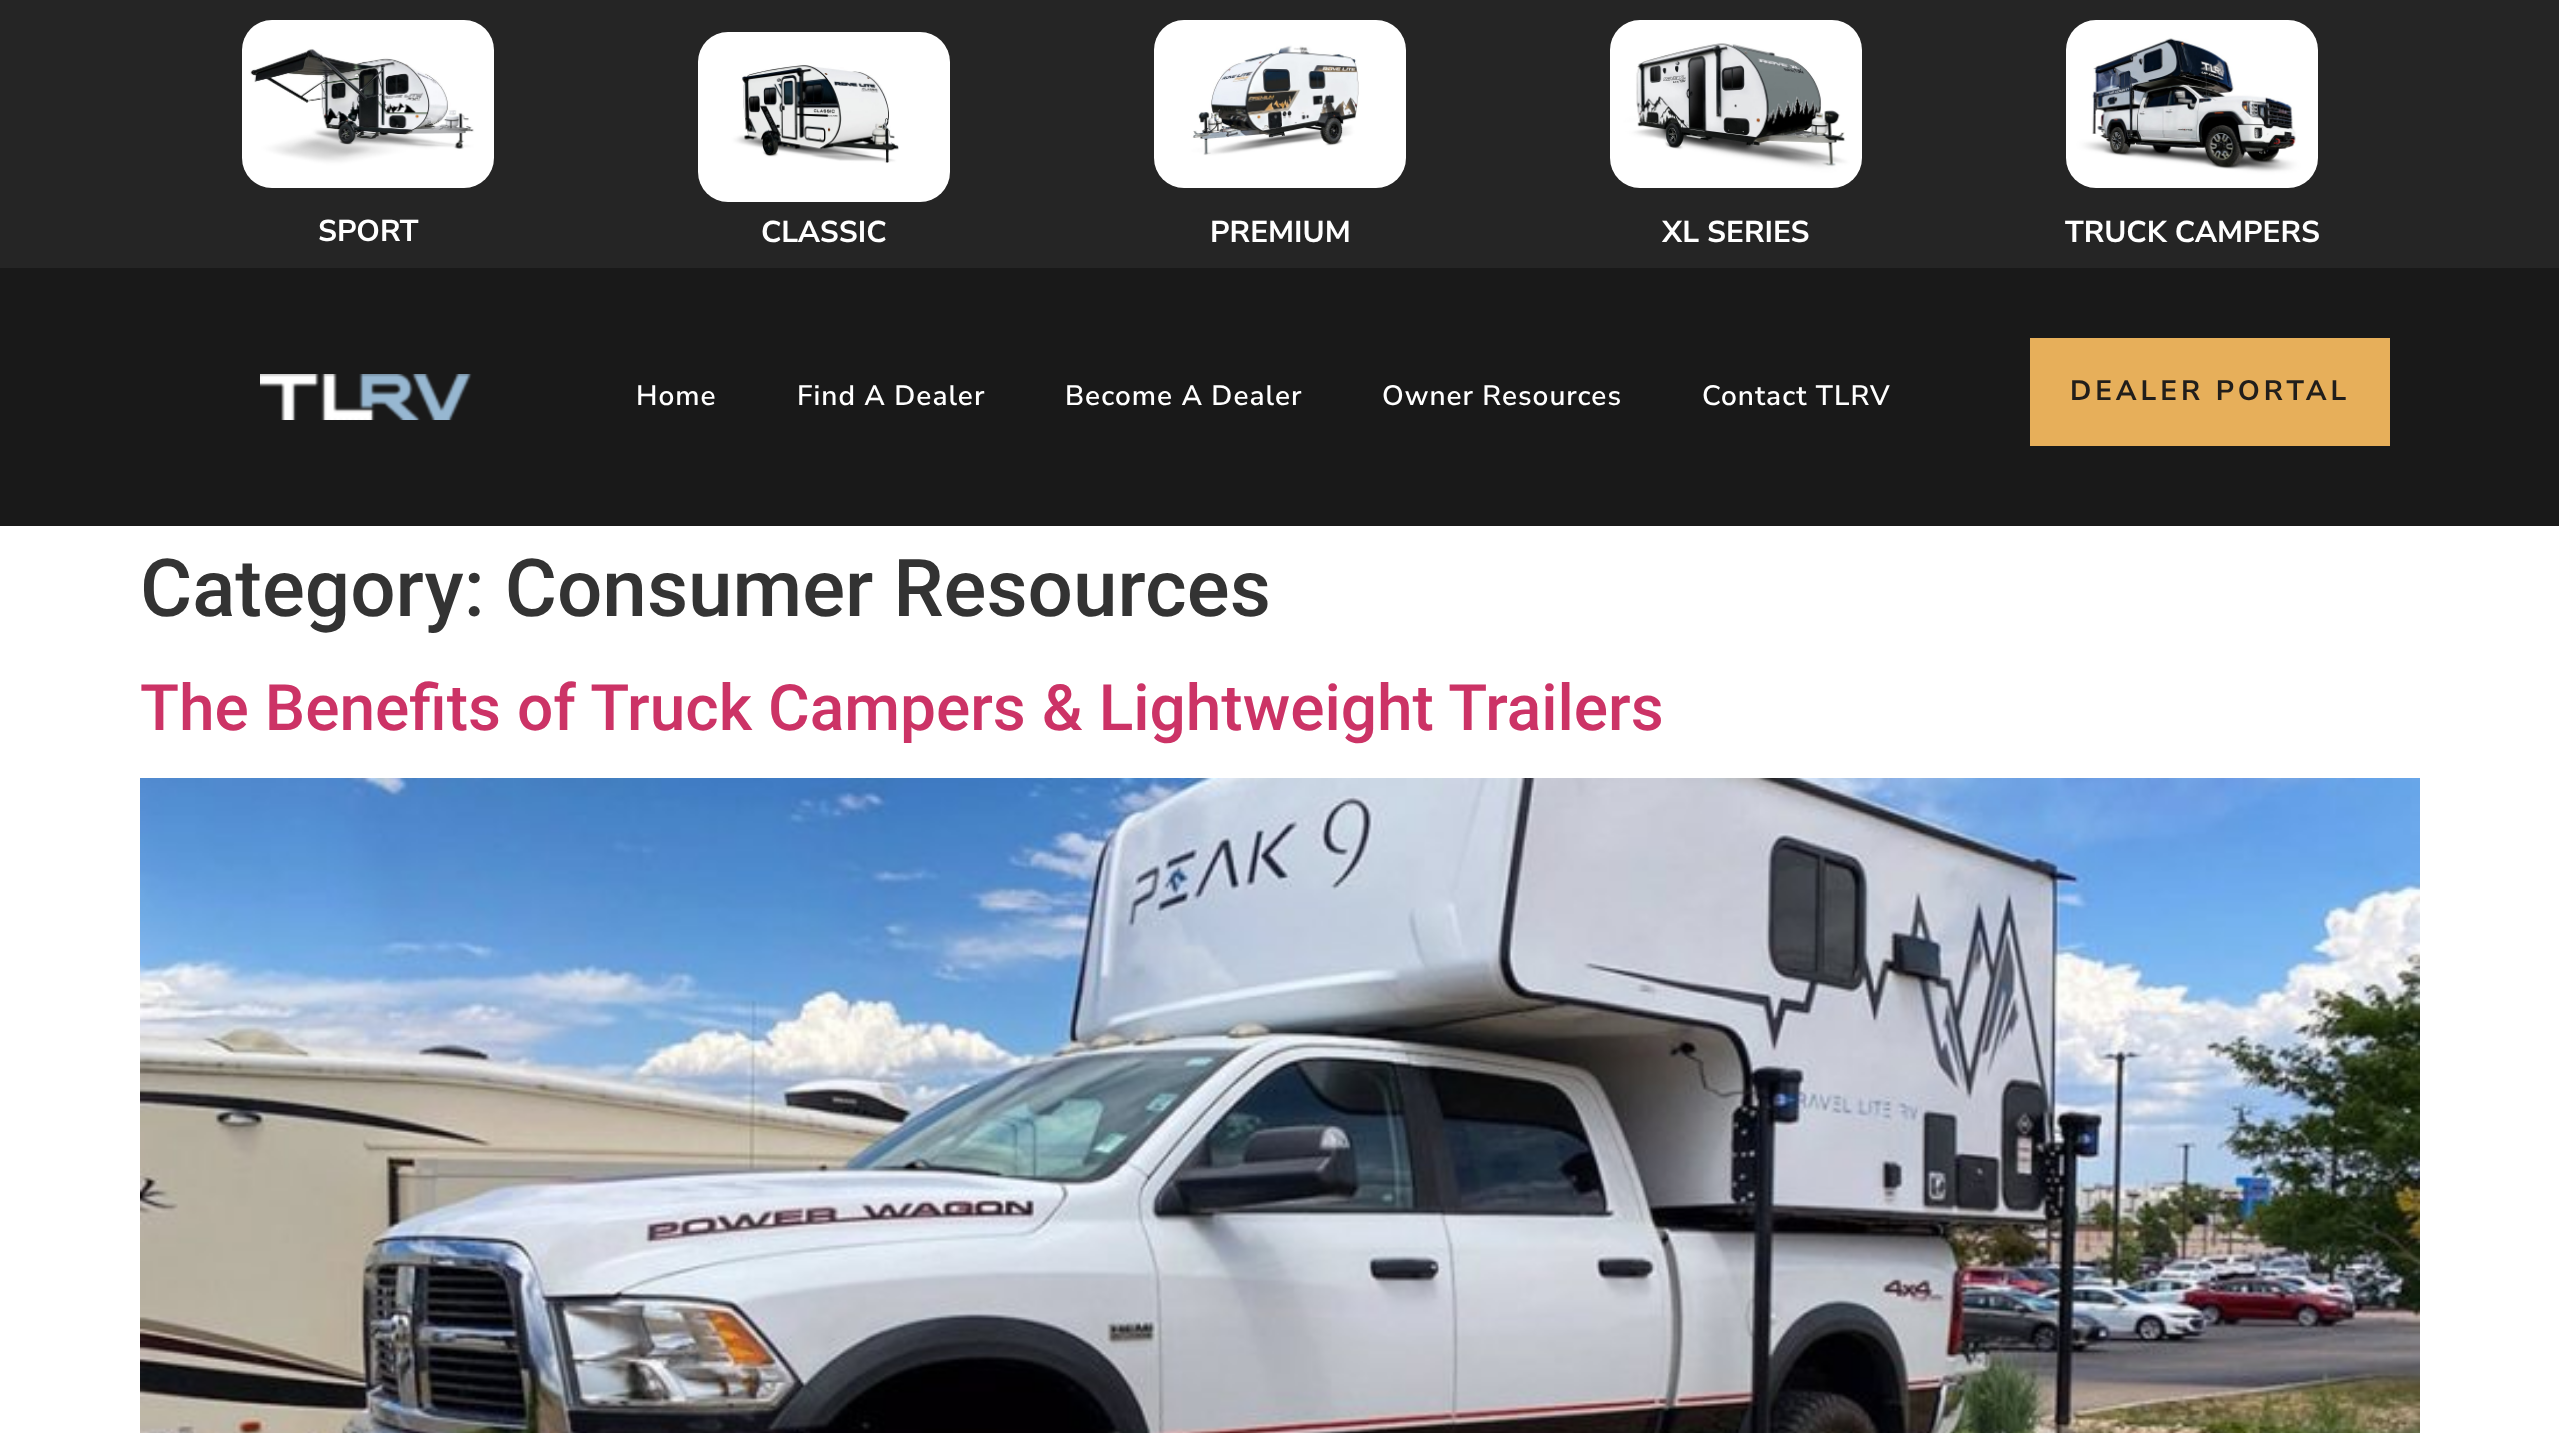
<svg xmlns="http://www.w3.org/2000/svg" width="2559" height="1433">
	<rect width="100%" height="100%" fill="#FFFFFF" />
	<rect x="0" y="0" width="2559" height="268" fill="#252525" />
	<image x="242" y="20" width="252" height="168" href="assets/img1.png" />
	<text x="318" y="241" font-family="Nunito Sans" font-size="30" font-weight="700" fill="#FFFFFF">SPORT</text>
	<image x="698" y="32" width="252" height="170" href="assets/img2.png" />
	<text x="761" y="242" font-family="Nunito Sans" font-size="30" font-weight="700" fill="#FFFFFF">CLASSIC</text>
	<image x="1154" y="20" width="252" height="168" href="assets/img3.png" />
	<text x="1210" y="242" font-family="Nunito Sans" font-size="30" font-weight="700" fill="#FFFFFF">PREMIUM</text>
	<image x="1610" y="20" width="252" height="168" href="assets/img4.png" />
	<text x="1662" y="242" font-family="Nunito Sans" font-size="30" font-weight="700" fill="#FFFFFF">XL SERIES</text>
	<image x="2066" y="20" width="252" height="168" href="assets/img5.png" />
	<text x="2065" y="242" font-family="Nunito Sans" font-size="30" font-weight="700" fill="#FFFFFF">TRUCK CAMPERS</text>
	<rect x="0" y="268" width="2559" height="258" fill="#191919" />
	<image x="260" y="374" width="212" height="46" href="assets/img6.png" />
	<g font-family="Nunito Sans" font-size="28" font-weight="600" letter-spacing="1" fill="#FFFFFF">
		<text x="636" y="405">Home</text>
		<text x="797" y="405">Find A Dealer</text>
		<text x="1065" y="405">Become A Dealer</text>
		<text x="1382" y="405">Owner Resources</text>
		<text x="1702" y="405">Contact TLRV</text>
	</g>
	<rect x="2030" y="338" width="360" height="108" fill="#E7AF5A" />
	<text x="2070" y="400" font-family="Nunito Sans" font-size="28" font-weight="700" letter-spacing="4" fill="#211E1B">DEALER PORTAL</text>
	<text x="140" y="616" font-family="Roboto" font-size="80" font-weight="500" fill="#333333">Category: Consumer Resources</text>
	<text x="140" y="730" font-family="Roboto" font-size="64" font-weight="500" fill="#CC3366">The Benefits of Truck Campers &amp; Lightweight Trailers</text>
	<image x="140" y="778" width="2280" height="655" href="assets/img7.png" />
</svg>
